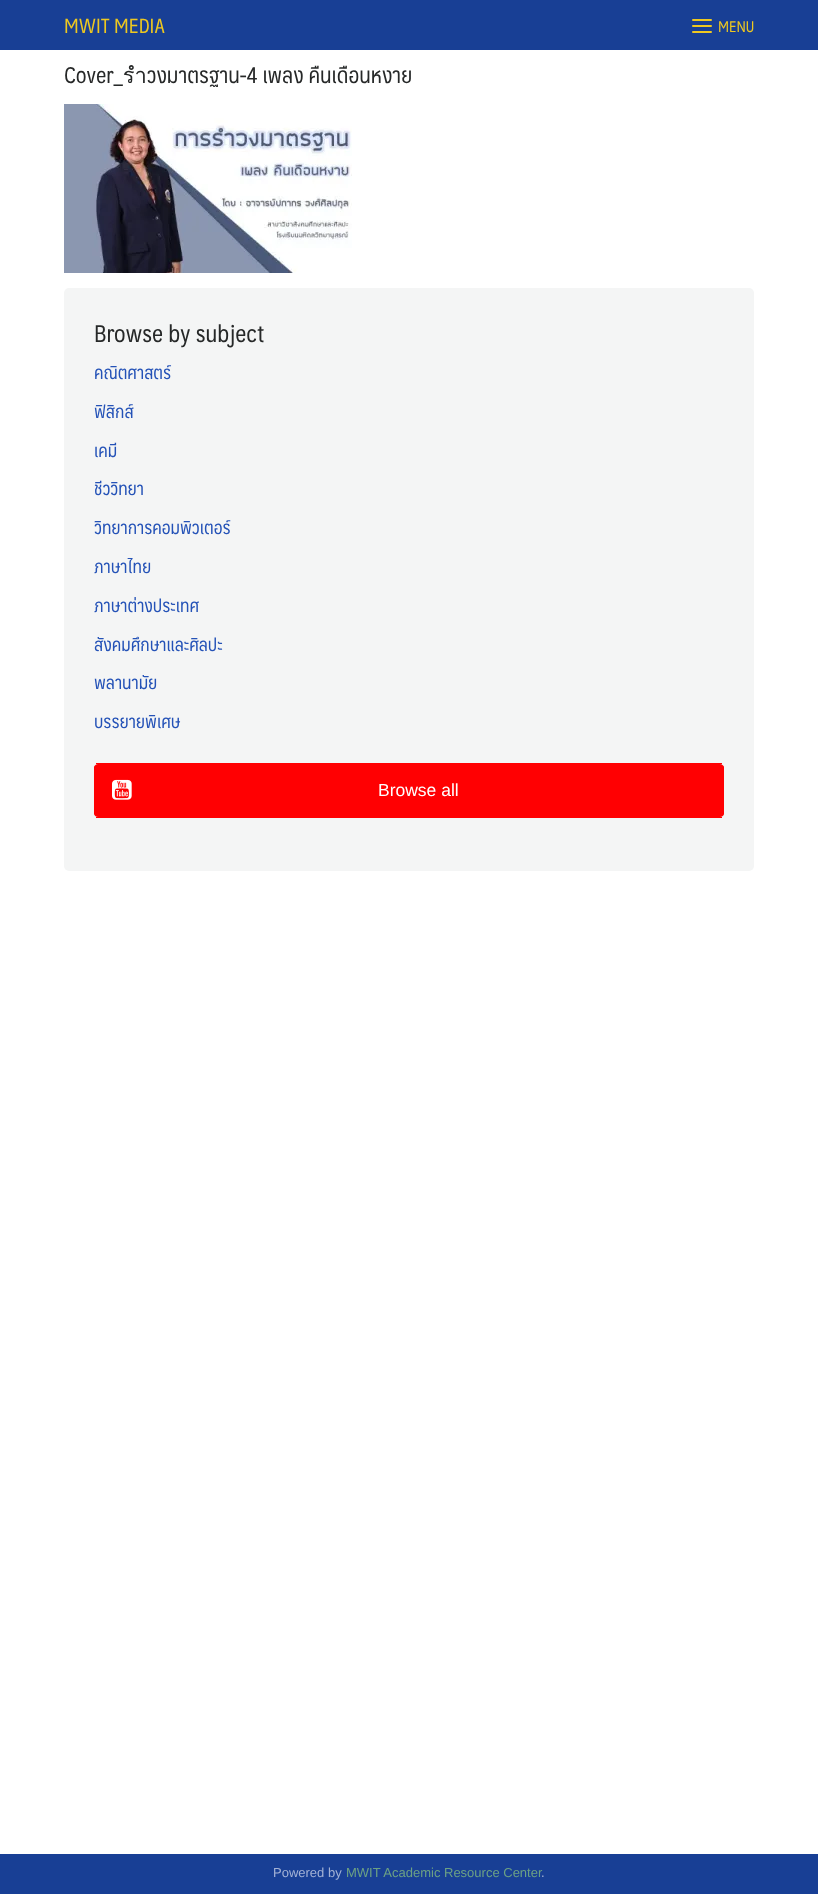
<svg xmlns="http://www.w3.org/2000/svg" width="818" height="1894">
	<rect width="100%" height="100%" fill="#FFFFFF" />
	<rect x="0" y="0" width="818" height="50" fill="#000000" fill-opacity="0.4" filter="blur(0.5px)" />
	<rect x="0" y="0" width="818" height="50" fill="#183F95" />
	<text x="64" y="33" font-family="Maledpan" font-size="20" fill="#EEC820">MWIT MEDIA</text>
	<rect x="692" y="19" width="20" height="2" rx="1" fill="#EEC820" />
	<rect x="692" y="25" width="20" height="2" rx="1" fill="#EEC820" />
	<rect x="692" y="31" width="20" height="2" rx="1" fill="#EEC820" />
	<text x="718" y="32" font-family="Maledpan" font-size="15" fill="#EEC820">MENU</text>
	<text x="64" y="83" font-family="Maledpan" font-size="22" fill="#262828">Cover_รำวงมาตรฐาน-4 เพลง คืนเดือนหงาย</text>
	<image x="64" y="104" width="288" height="169" href="assets/img1.png" />
	<rect x="64" y="288" width="690" height="583" rx="5" fill="#F4F5F5" />
	<text x="94" y="342" font-family="Maledpan" font-size="23.5" fill="#262828">Browse by subject</text>
	<g font-family="Maledpan" font-size="18" fill="#2452B7">
		<text x="94" y="379">คณิตศาสตร์</text>
		<text x="94" y="418">ฟิสิกส์</text>
		<text x="94" y="457">เคมี</text>
		<text x="94" y="495">ชีววิทยา</text>
		<text x="94" y="534">วิทยาการคอมพิวเตอร์</text>
		<text x="94" y="573">ภาษาไทย</text>
		<text x="94" y="612">ภาษาต่างประเทศ</text>
		<text x="94" y="651">สังคมศึกษาและศิลปะ</text>
		<text x="94" y="689">พลานามัย</text>
		<text x="94" y="728">บรรยายพิเศษ</text>
	</g>
	<path d="M98 764H720C722 764 724 766 724 767V814C724 815 722 817 720 817H98C96 817 94 815 94 814V767C94 766 96 764 98 764Z" fill="#FF0002" />
	<rect x="96" y="763" width="626" height="1" fill="#FF0002" />
	<rect x="96" y="817" width="626" height="1" fill="#FF0002" />
	<image x="112" y="779" width="20" height="21" href="assets/img2.png" />
	<text x="378" y="796" font-family="Liberation Sans" font-size="17.5" fill="#FFFFFF">Browse all</text>
	<rect x="0" y="1854" width="818" height="40" fill="#183F95" />
	<text x="273" y="1877" font-family="Liberation Sans" font-size="13" fill="#A3B2D5">Powered by</text>
	<text x="346" y="1877" font-family="Liberation Sans" font-size="13" fill="#6CA184">MWIT Academic Resource Center</text>
	<text x="541" y="1877" font-family="Liberation Sans" font-size="13" fill="#A3B2D5">.</text>
</svg>
